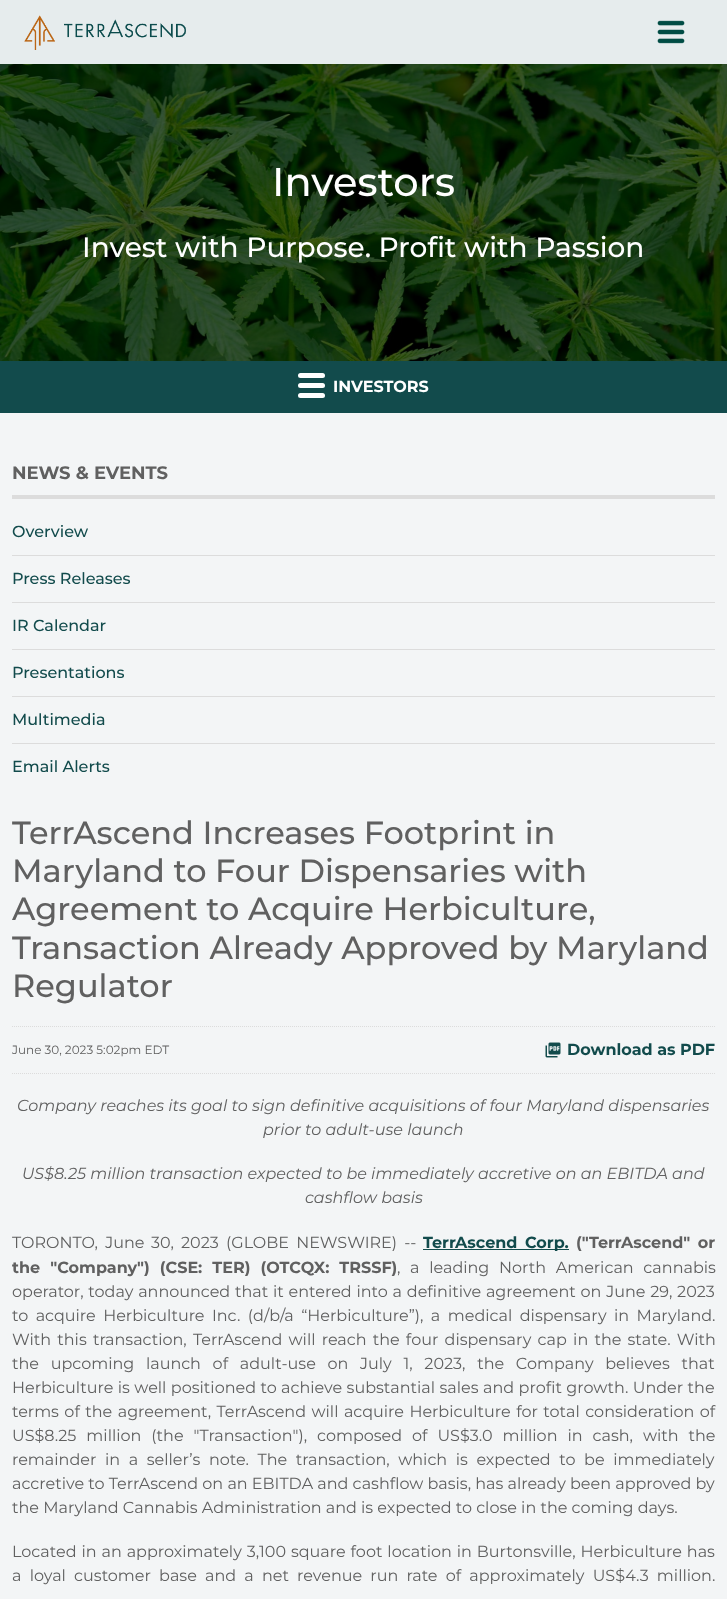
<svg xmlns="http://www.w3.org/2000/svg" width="727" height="1599">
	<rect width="100%" height="100%" fill="#F3F5F6" />
	<rect x="0" y="0" width="727" height="64" fill="#E6ECED" />
	<image x="24" y="15" width="162" height="35" href="assets/img1.png" />
	<image x="657" y="20" width="28" height="24" href="assets/img2.png" />
	<image x="0" y="64" width="727" height="297" href="assets/img3.png" />
	<text x="272" y="196" font-family="Montserrat" font-size="40" font-weight="100" fill="#FFFFFF">Investors</text>
	<text x="82" y="257" font-family="Montserrat" font-size="28" font-weight="100" fill="#FFFFFF">Invest with Purpose. Profit with Passion</text>
	<rect x="0" y="361" width="727" height="52" fill="#124B4C" />
	<rect x="298" y="373" width="27" height="5" rx="2.5" fill="#FFFFFF" />
	<rect x="298" y="383" width="27" height="5" rx="2.5" fill="#FFFFFF" />
	<rect x="298" y="393" width="27" height="5" rx="2.5" fill="#FFFFFF" />
	<text x="333" y="392" font-family="'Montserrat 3'" font-size="16" font-weight="100" fill="#FFFFFF">INVESTORS</text>
	<rect x="12" y="495" width="703" height="4" fill="#DCDCDC" />
	<text x="12" y="479" font-family="'Montserrat 3'" font-size="18" font-weight="100" fill="#606060">NEWS &amp; EVENTS</text>
	<rect x="12" y="555" width="703" height="1" fill="#DCDCDC" />
	<text x="12" y="537" font-family="Montserrat" font-size="16" font-weight="100" fill="#124B4C">Overview</text>
	<rect x="12" y="602" width="703" height="1" fill="#DCDCDC" />
	<text x="12" y="584" font-family="Montserrat" font-size="16" font-weight="100" fill="#124B4C">Press Releases</text>
	<rect x="12" y="649" width="703" height="1" fill="#DCDCDC" />
	<text x="12" y="631" font-family="Montserrat" font-size="16" font-weight="100" fill="#124B4C">IR Calendar</text>
	<rect x="12" y="696" width="703" height="1" fill="#DCDCDC" />
	<text x="12" y="678" font-family="Montserrat" font-size="16" font-weight="100" fill="#124B4C">Presentations</text>
	<rect x="12" y="743" width="703" height="1" fill="#DCDCDC" />
	<g font-family="Montserrat" font-size="16" font-weight="100" fill="#124B4C">
		<text x="12" y="725">Multimedia</text>
		<text x="12" y="772">Email Alerts</text>
	</g>
	<g font-family="Montserrat" font-size="32" font-weight="100" fill="#606060">
		<text x="12" y="844">TerrAscend Increases Footprint in</text>
		<text x="12" y="882">Maryland to Four Dispensaries with</text>
		<text x="12" y="920">Agreement to Acquire Herbiculture,</text>
		<text x="12" y="959">Transaction Already Approved by Maryland</text>
		<text x="12" y="997">Regulator</text>
	</g>
	<path d="M12 1026.5H715" fill="none" stroke="#DCDCDC" stroke-dasharray="1 1" />
	<path d="M12 1073.5H715" fill="none" stroke="#DCDCDC" stroke-dasharray="1 1" />
	<text x="12" y="1054" font-family="'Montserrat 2'" font-size="12" font-weight="100" fill="#606060">June 30, 2023 5:02pm EDT</text>
	<image x="545" y="1042" width="16" height="16" href="assets/img4.png" />
	<text x="567" y="1055" font-family="'Montserrat 3'" font-size="16" font-weight="100" fill="#124B4C">Download as PDF</text>
	<g font-family="Montserrat" font-size="16" font-style="italic" fill="#606060">
		<text x="17" y="1111">Company reaches its goal to sign definitive acquisitions of four Maryland dispensaries</text>
		<text x="263" y="1135">prior to adult-use launch</text>
		<text x="22" y="1179">US$8.25 million transaction expected to be immediately accretive on an EBITDA and</text>
		<text x="305" y="1203">cashflow basis</text>
	</g>
	<g font-family="'Montserrat 2'" font-size="16" font-weight="100" fill="#606060">
		<text x="12" y="1248" word-spacing="3">TORONTO, June</text>
		<text x="151" y="1248" word-spacing="3">30, 2023</text>
		<text x="226" y="1248" word-spacing="3">(GLOBE NEWSWIRE) --</text>
	</g>
	<rect x="423" y="1249" width="146" height="1" fill="#124B4C" />
	<text x="423" y="1248" word-spacing="3" font-family="'Montserrat 3'" font-size="16" font-weight="100" fill="#124B4C">TerrAscend Corp.</text>
	<g font-family="'Montserrat 3'" font-size="16" font-weight="100" fill="#606060">
		<text x="576" y="1248" word-spacing="3">("TerrAscend" or</text>
		<text x="12" y="1273" word-spacing="5.5">the "Company") (CSE: TER) (OTCQX: TRSSF)</text>
	</g>
	<g font-family="'Montserrat 2'" font-size="16" font-weight="100" fill="#606060">
		<text x="397" y="1273" word-spacing="5.5">, a leading North American cannabis</text>
		<text x="12" y="1297" word-spacing="0.6">operator, today announced that it entered into a definitive agreement on June 29, 2023</text>
		<text x="12" y="1321" word-spacing="3.25">to acquire Herbiculture Inc. (d/b/a “Herbiculture”), a medical dispensary in Maryland.</text>
		<text x="12" y="1345" word-spacing="2">With this transaction, TerrAscend will reach the four dispensary cap in the state. With</text>
		<text x="12" y="1369" word-spacing="7.5">the upcoming launch of adult-use on July 1, 2023, the Company believes that</text>
		<text x="12" y="1393" word-spacing="0.25">Herbiculture is well positioned to achieve substantial sales and profit growth. Under the</text>
		<text x="12" y="1417" word-spacing="1.25">terms of the agreement, TerrAscend will acquire Herbiculture for total consideration of</text>
		<text x="12" y="1441" word-spacing="5.75">US$8.25 million (the "Transaction"), composed of US$3.0 million in cash, with the</text>
		<text x="12" y="1465" word-spacing="4.4">remainder in a seller’s note. The transaction, which is expected to be immediately</text>
		<text x="12" y="1489">accretive to TerrAscend on an EBITDA and cashflow basis, has already been approved by</text>
		<text x="12" y="1513">the Maryland Cannabis Administration and is expected to close in the coming days.</text>
		<text x="12" y="1557" word-spacing="0.75">Located in an approximately 3,100 square foot location in Burtonsville, Herbiculture has</text>
		<text x="12" y="1581" word-spacing="4">a loyal customer base and a net revenue run rate of approximately US$4.3 million.</text>
	</g>
</svg>
